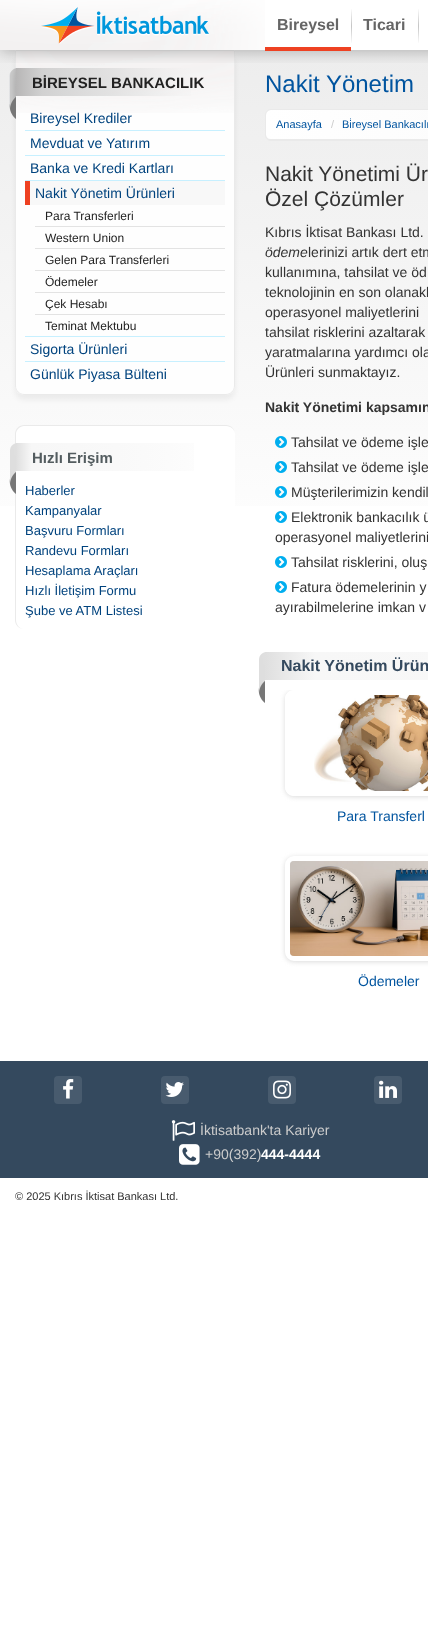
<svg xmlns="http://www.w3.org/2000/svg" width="428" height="1641">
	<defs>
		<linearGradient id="g1" gradientUnits="userSpaceOnUse" x1="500" y1="50" x2="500" y2="1031"><stop offset="0" stop-color="#EDEDED" /><stop offset="0.54" stop-color="#FFFFFF" /></linearGradient>
		<linearGradient id="g2" gradientUnits="userSpaceOnUse" x1="16" y1="82" x2="234" y2="82"><stop offset="0" stop-color="#B7B6B6" /><stop offset="0.12" stop-color="#CECECE" stop-opacity="0.92" /><stop offset="0.45" stop-color="#DBDBDB" stop-opacity="0.71" /><stop offset="0.59" stop-color="#E4E4E4" stop-opacity="0.62" /><stop offset="0.84" stop-color="#F4F4F4" stop-opacity="0.24" /><stop offset="1" stop-color="#F4F4F4" stop-opacity="0" /></linearGradient>
		<clipPath id="clip1"><rect x="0" y="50" width="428" height="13" /></clipPath>
		<linearGradient id="g3" gradientUnits="userSpaceOnUse" x1="16" y1="457" x2="235" y2="457"><stop offset="0" stop-color="#DFDFDF" /><stop offset="0.07" stop-color="#F7F7F7" /><stop offset="0.46" stop-color="#F9F9F9" /><stop offset="0.7" stop-color="#FBFBFB" /><stop offset="1" stop-color="#FFFFFF" /></linearGradient>
		<linearGradient id="g4" gradientUnits="userSpaceOnUse" x1="266" y1="125" x2="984" y2="124"><stop offset="0" stop-color="#FFFFFF" /><stop offset="0.67" stop-color="#F7F7F7" /><stop offset="0.82" stop-color="#F1F1F1" /><stop offset="1" stop-color="#F0F0F0" /></linearGradient>
		<linearGradient id="g5" gradientUnits="userSpaceOnUse" x1="265" y1="666" x2="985" y2="666"><stop offset="0" stop-color="#DFDFDF" /><stop offset="0.07" stop-color="#F7F7F7" /><stop offset="0.46" stop-color="#F9F9F9" /><stop offset="0.7" stop-color="#FBFBFB" /><stop offset="1" stop-color="#FFFFFF" /></linearGradient>
		<clipPath id="clip2"><rect x="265" y="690" width="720" height="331" /></clipPath>
		<clipPath id="clip3"><path d="M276 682H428V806H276ZM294 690H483C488 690 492 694 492 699V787C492 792 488 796 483 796H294C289 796 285 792 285 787V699C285 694 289 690 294 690Z" clip-rule="evenodd" /></clipPath>
	</defs>
	<rect width="100%" height="100%" fill="#FFFFFF" />
	<rect x="0" y="50" width="428" height="456" fill="url(#g1)" />
	<rect x="15" y="55" width="220" height="345" rx="9" fill="#000000" fill-opacity="0.05" filter="blur(2.5px)" />
	<path d="M15 50H235V386C235 391 231 395 226 395H24C19 395 15 391 15 386Z" fill="#FEFEFE" />
	<image x="16" y="51" width="218" height="62" href="assets/img4.png" />
	<path d="M15.5 50.5H234.5V386C234.5 390.5 230.5 394.5 226 394.5H24C19.5 394.5 15.5 390.5 15.5 386Z" fill="none" stroke="#EAEAEA" />
	<rect x="16" y="68" width="175" height="28" fill="url(#g2)" />
	<image x="9" y="68" width="7" height="51" href="assets/img5.png" />
	<g clip-path="url(#clip1)">
		<rect x="0" y="2" width="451" height="50" fill="#000000" fill-opacity="0.25" filter="blur(7.5px)" />
	</g>
	<image x="0" y="0" width="265" height="50" href="assets/img1.png" />
	<image x="41" y="7" width="168" height="37" href="assets/img2.png" />
	<rect x="265" y="47" width="86" height="4" fill="#EE4122" />
	<text x="277" y="30" font-family="Liberation Sans" font-size="16" font-weight="700" fill="#666666">Bireysel</text>
	<image x="351" y="9" width="1" height="34" href="assets/img3.png" />
	<text x="363" y="30" font-family="Liberation Sans" font-size="16" font-weight="700" fill="#666666">Ticari</text>
	<image x="418" y="9" width="1" height="34" href="assets/img3.png" />
	<text x="32" y="88" font-family="Liberation Sans" font-size="15" font-weight="700" fill="#222222">BİREYSEL BANKACILIK</text>
	<text x="30" y="123" font-family="Liberation Sans" font-size="14" fill="#00437E">Bireysel Krediler</text>
	<rect x="25" y="130" width="200" height="1" fill="#C7F0FF" />
	<text x="30" y="148" font-family="Liberation Sans" font-size="14" fill="#00437E">Mevduat ve Yatırım</text>
	<rect x="25" y="155" width="200" height="1" fill="#C7F0FF" />
	<text x="30" y="173" font-family="Liberation Sans" font-size="14" fill="#00437E">Banka ve Kredi Kartları</text>
	<rect x="25" y="180" width="200" height="1" fill="#C7F0FF" />
	<rect x="30" y="181" width="195" height="24" fill="#F8F8F8" />
	<rect x="25" y="181" width="5" height="24" fill="#EE4122" />
	<text x="35" y="198" font-family="Liberation Sans" font-size="14" fill="#00437E">Nakit Yönetim Ürünleri</text>
	<text x="45" y="220" font-family="Liberation Sans" font-size="12" fill="#222222">Para Transferleri</text>
	<rect x="35" y="226" width="190" height="1" fill="#E3E3E3" />
	<text x="45" y="242" font-family="Liberation Sans" font-size="12" fill="#222222">Western Union</text>
	<rect x="35" y="248" width="190" height="1" fill="#E3E3E3" />
	<text x="45" y="264" font-family="Liberation Sans" font-size="12" fill="#222222">Gelen Para Transferleri</text>
	<rect x="35" y="270" width="190" height="1" fill="#E3E3E3" />
	<text x="45" y="286" font-family="Liberation Sans" font-size="12" fill="#222222">Ödemeler</text>
	<rect x="35" y="292" width="190" height="1" fill="#E3E3E3" />
	<text x="45" y="308" font-family="Liberation Sans" font-size="12" fill="#222222">Çek Hesabı</text>
	<rect x="35" y="314" width="190" height="1" fill="#E3E3E3" />
	<text x="45" y="330" font-family="Liberation Sans" font-size="12" fill="#222222">Teminat Mektubu</text>
	<rect x="25" y="336" width="200" height="1" fill="#C7F0FF" />
	<text x="30" y="354" font-family="Liberation Sans" font-size="14" fill="#00437E">Sigorta Ürünleri</text>
	<rect x="25" y="361" width="200" height="1" fill="#C7F0FF" />
	<text x="30" y="379" font-family="Liberation Sans" font-size="14" fill="#00437E">Günlük Piyasa Bülteni</text>
	<rect x="15" y="425" width="220" height="204" rx="9" fill="#FFFFFF" />
	<path d="M24 425H226C231 425 235 429 235 434V620C235 625 231 629 226 629H24C19 629 15 625 15 620V434C15 429 19 425 24 425ZM24 426H226C231 426 235 430 235 434V620C235 625 231 629 226 629H24C20 629 16 625 16 620V434C16 430 20 426 24 426Z" fill="#EAEAEA" fill-rule="evenodd" />
	<rect x="16" y="443" width="178" height="28" fill="url(#g3)" />
	<image x="9" y="443" width="7" height="51" href="assets/img6.png" />
	<text x="32" y="463" font-family="Liberation Sans" font-size="15" font-weight="700" fill="#535C5F">Hızlı Erişim</text>
	<g font-family="Liberation Sans" font-size="13" fill="#00437E">
		<text x="25" y="495">Haberler</text>
		<text x="25" y="515">Kampanyalar</text>
		<text x="25" y="535">Başvuru Formları</text>
		<text x="25" y="555">Randevu Formları</text>
		<text x="25" y="575">Hesaplama Araçları</text>
		<text x="25" y="595">Hızlı İletişim Formu</text>
		<text x="25" y="615">Şube ve ATM Listesi</text>
	</g>
	<text x="265" y="92" font-family="Liberation Sans" font-size="24" fill="#00549F">Nakit Yönetim</text>
	<path d="M271 110H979C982 110 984 112 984 115V135C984 137 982 139 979 139H271C268 139 266 137 266 135V115C266 112 268 110 271 110Z" fill="url(#g4)" />
	<rect x="265.5" y="109.5" width="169" height="31" rx="5.5" fill="none" stroke="#EAEAEA" />
	<rect x="268" y="139" width="160" height="1" fill="#EAEAEA" />
	<text x="276" y="128" font-family="Liberation Sans" font-size="11" fill="#00549F">Anasayfa</text>
	<text x="331" y="128" font-family="Liberation Sans" font-size="11" fill="#CCCCCC">/</text>
	<text x="342" y="128" font-family="Liberation Sans" font-size="11" fill="#00549F">Bi̇reysel Bankacılı</text>
	<g font-family="Liberation Sans" font-size="21" fill="#333333">
		<text x="265" y="181">Nakit Yönetimi Ür</text>
		<text x="265" y="206">Özel Çözümler</text>
	</g>
	<text x="265" y="237" font-family="Liberation Sans" font-size="14" fill="#333333">Kıbrıs İktisat Bankası Ltd.</text>
	<text x="265" y="257" font-family="Liberation Sans" font-size="14" font-style="italic" fill="#333333">ödeme</text>
	<g font-family="Liberation Sans" font-size="14" fill="#333333">
		<text x="308" y="257">lerinizi artık dert etm</text>
		<text x="265" y="277">kullanımına, tahsilat ve öd</text>
		<text x="265" y="297">teknolojinin en son olanakl</text>
		<text x="265" y="317">operasyonel maliyetlerini</text>
		<text x="265" y="337">tahsilat risklerini azaltarak</text>
		<text x="265" y="357">yaratmalarına yardımcı ola</text>
		<text x="265" y="377">Ürünleri sunmaktayız.</text>
	</g>
	<text x="265" y="412" font-family="Liberation Sans" font-size="14" font-weight="700" fill="#333333">Nakit Yönetimi kapsamın</text>
	<image x="275" y="436" width="12" height="12" href="assets/img7.png" />
	<text x="291" y="447" font-family="Liberation Sans" font-size="14" fill="#333333">Tahsilat ve ödeme işle</text>
	<image x="275" y="461" width="12" height="12" href="assets/img8.png" />
	<text x="291" y="472" font-family="Liberation Sans" font-size="14" fill="#333333">Tahsilat ve ödeme işle</text>
	<image x="275" y="486" width="12" height="12" href="assets/img9.png" />
	<text x="291" y="497" font-family="Liberation Sans" font-size="14" fill="#333333">Müşterilerimizin kendil</text>
	<image x="275" y="511" width="12" height="12" href="assets/img10.png" />
	<g font-family="Liberation Sans" font-size="14" fill="#333333">
		<text x="291" y="522">Elektronik bankacılık ü</text>
		<text x="275" y="542">operasyonel maliyetlerini</text>
	</g>
	<image x="275" y="556" width="12" height="12" href="assets/img11.png" />
	<text x="291" y="567" font-family="Liberation Sans" font-size="14" fill="#333333">Tahsilat risklerini, oluş</text>
	<image x="275" y="581" width="12" height="12" href="assets/img12.png" />
	<g font-family="Liberation Sans" font-size="14" fill="#333333">
		<text x="291" y="592">Fatura ödemelerinin y</text>
		<text x="275" y="612">ayırabilmelerine imkan v</text>
	</g>
	<rect x="265" y="652" width="163" height="28" fill="url(#g5)" />
	<image x="258" y="652" width="7" height="51" href="assets/img13.png" />
	<text x="281" y="671" font-family="Liberation Sans" font-size="16" font-weight="700" fill="#34495E">Nakit Yönetim Ürün</text>
	<g clip-path="url(#clip2)">
		<g clip-path="url(#clip3)">
			<rect x="285" y="691" width="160" height="106" rx="9" fill="#CCCCCC" fill-opacity="0.7" filter="blur(2.5px)" />
		</g>
	</g>
	<rect x="287.5" y="692.5" width="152" height="101" rx="6.5" fill="none" stroke="#FFFFFF" stroke-width="5" />
	<image x="314" y="695" width="114" height="96" href="assets/img14.png" />
	<text x="337" y="821" font-family="Liberation Sans" font-size="14" fill="#00549F">Para Transferl</text>
	<rect x="285" y="857" width="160" height="105" rx="9" fill="#CCCCCC" fill-opacity="0.7" filter="blur(2.5px)" />
	<rect x="287.5" y="858.5" width="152" height="100" rx="6.5" fill="none" stroke="#FFFFFF" stroke-width="5" />
	<image x="290" y="861" width="138" height="95" href="assets/img15.png" />
	<text x="358" y="986" font-family="Liberation Sans" font-size="14" fill="#00549F">Ödemeler</text>
	<rect x="0" y="1061" width="428" height="117" fill="#34495E" />
	<rect x="54" y="1076" width="28" height="28" rx="4" fill="#485B6E" />
	<image x="63" y="1079" width="11" height="20" href="assets/img16.png" />
	<rect x="161" y="1076" width="28" height="28" rx="4" fill="#485B6E" />
	<image x="165" y="1082" width="19" height="15" href="assets/img17.png" />
	<rect x="268" y="1076" width="28" height="28" rx="4" fill="#485B6E" />
	<image x="273" y="1080" width="18" height="19" href="assets/img18.png" />
	<rect x="374" y="1076" width="28" height="28" rx="4" fill="#485B6E" />
	<image x="379" y="1080" width="18" height="18" href="assets/img19.png" />
	<image x="171" y="1120" width="24" height="21" href="assets/img20.png" />
	<text x="200" y="1135" font-family="Liberation Sans" font-size="14" fill="#CCCCCC">İktisatbank'ta Kariyer</text>
	<image x="179" y="1144" width="21" height="21" href="assets/img21.png" />
	<text x="205" y="1159" font-family="Liberation Sans" font-size="14" fill="#CCCCCC">+90(392)</text>
	<text x="261" y="1159" font-family="Liberation Sans" font-size="14" font-weight="700" fill="#FFFFFF">444-4444</text>
	<text x="15" y="1200" font-family="Liberation Sans" font-size="11" fill="#333333">© 2025 Kıbrıs İktisat Bankası Ltd.</text>
</svg>
